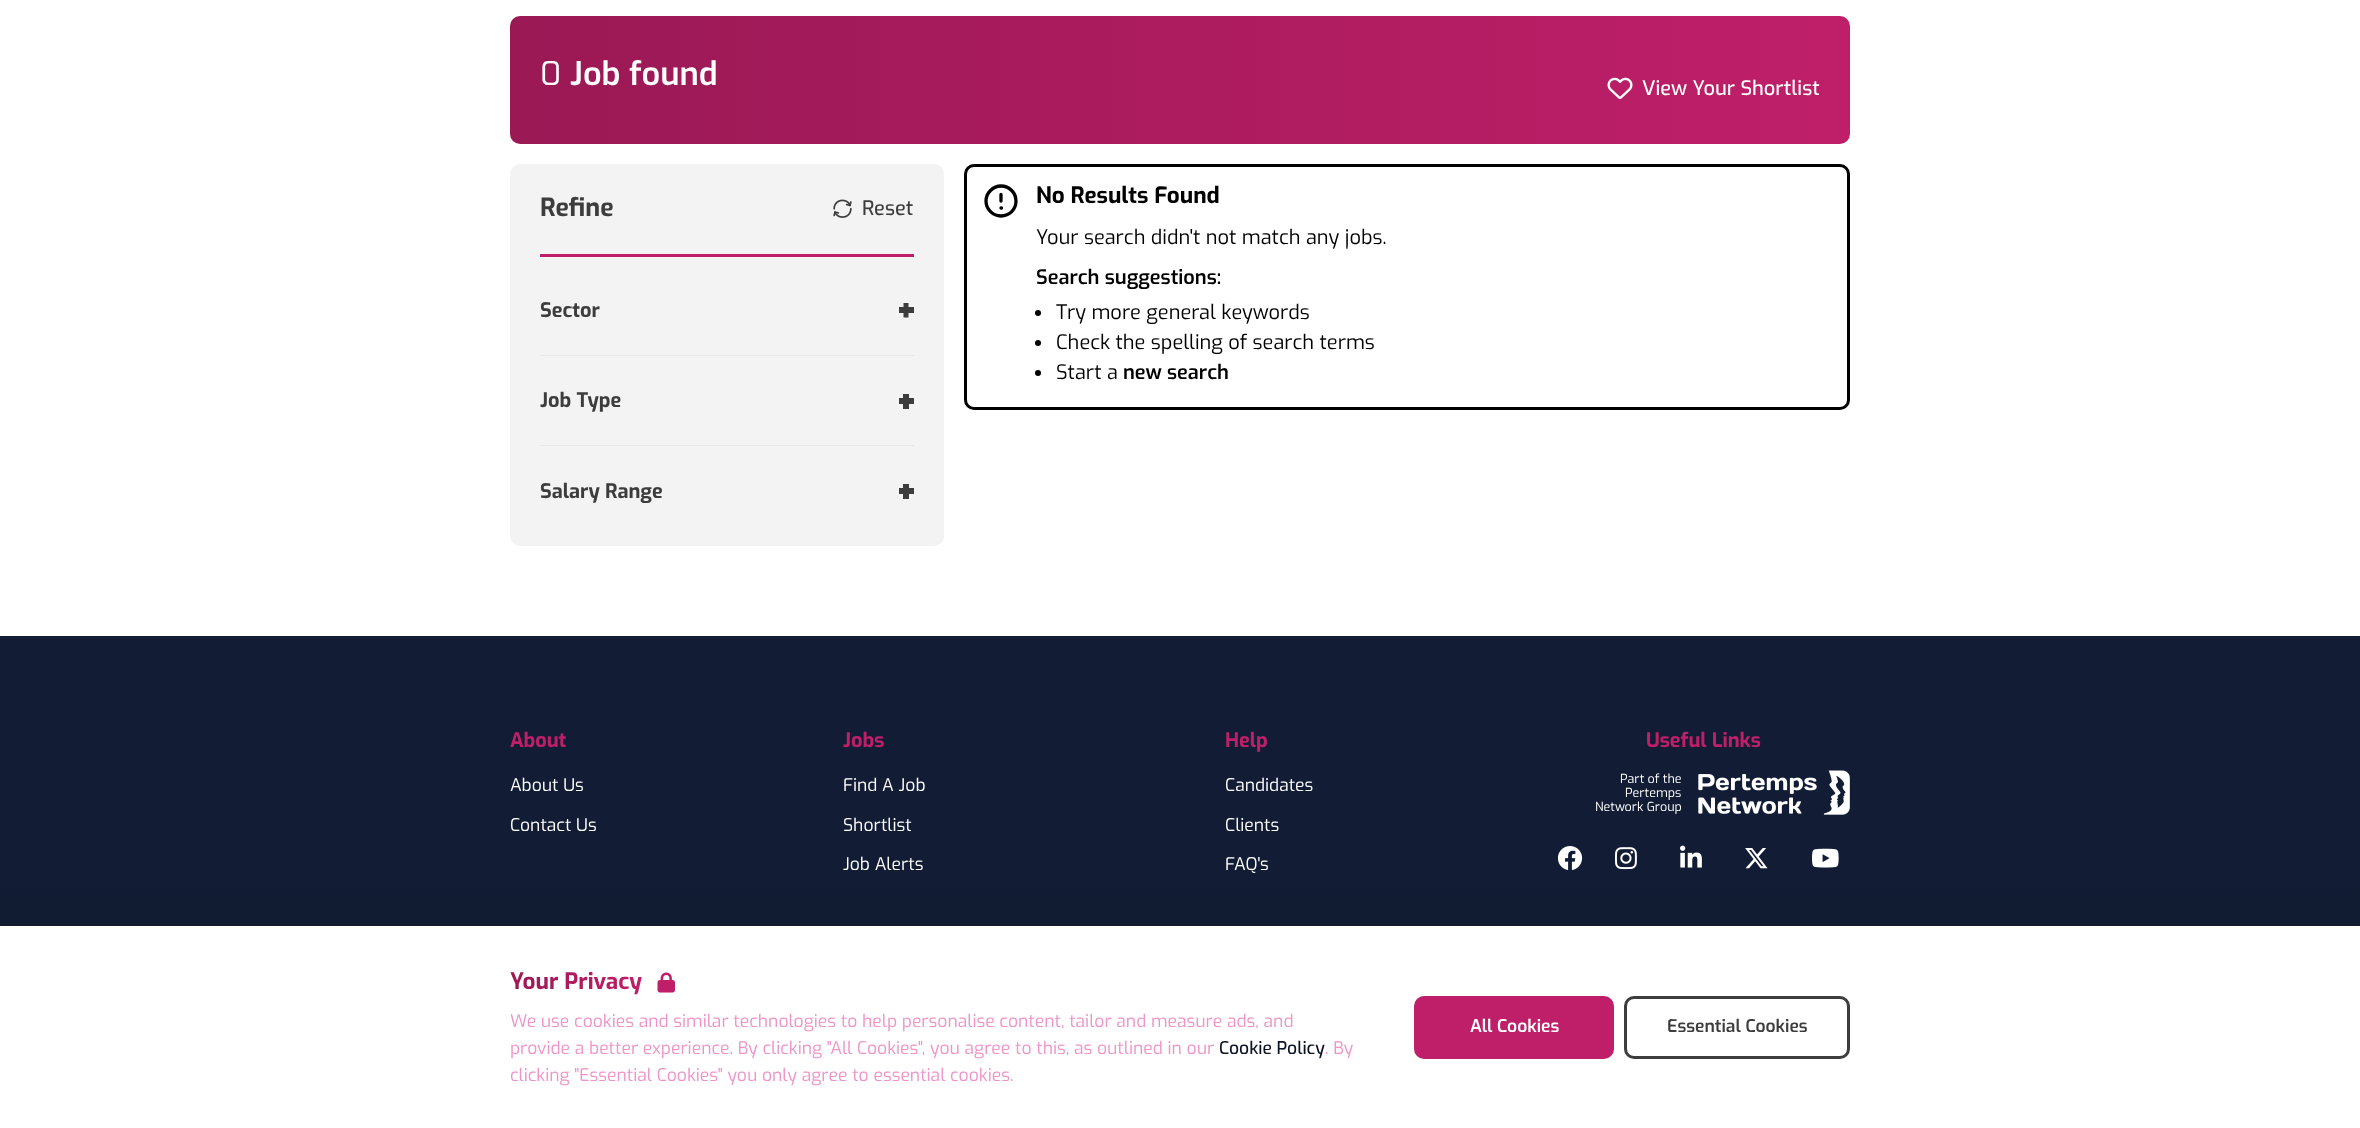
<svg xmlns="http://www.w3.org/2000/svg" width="2360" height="1128">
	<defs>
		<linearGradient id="g1" gradientUnits="userSpaceOnUse" x1="510" y1="80" x2="1850" y2="80"><stop offset="0" stop-color="#9A1955" /><stop offset="1" stop-color="#BF1F69" /></linearGradient>
		<clipPath id="clip1"><rect x="899" y="303" width="15" height="15" /></clipPath>
		<linearGradient id="g2" gradientUnits="userSpaceOnUse" x1="510" y1="982" x2="642" y2="982"><stop offset="0" stop-color="#9A1955" /><stop offset="1" stop-color="#BF1F69" /></linearGradient>
		<linearGradient id="g3" gradientUnits="userSpaceOnUse" x1="1180" y1="926" x2="1180" y2="876"><stop offset="0" stop-color="#111C32" /><stop offset="1" stop-color="#121D35" /></linearGradient>
	</defs>
	<rect width="100%" height="100%" fill="#FFFFFF" />
	<rect x="510" y="16" width="1340" height="128" rx="10" fill="url(#g1)" />
	<text x="540" y="85" font-family="Exo" font-size="32.5" fill="#FFFFFF">0</text>
	<text x="570" y="85" font-family="Exo" font-size="32.5" font-weight="600" fill="#FFFFFF">Job found</text>
	<image x="1607" y="77" width="26" height="22" href="assets/img1.png" />
	<text x="1642" y="95" font-family="Exo" font-size="20" font-weight="500" fill="#FFFFFF">View Your Shortlist</text>
	<rect x="510" y="164" width="434" height="382" rx="10" fill="#F3F3F3" />
	<text x="540" y="216" font-family="Exo" font-size="25" font-weight="700" fill="#3D3D3D">Refine</text>
	<image x="833" y="199" width="19" height="19" href="assets/img2.png" />
	<text x="862" y="215" font-family="Exo" font-size="20" font-weight="500" fill="#3D3D3D">Reset</text>
	<rect x="540" y="254" width="374" height="3" fill="#BF1F69" />
	<text x="540" y="317" font-family="Exo" font-size="20" font-weight="700" fill="#3D3D3D">Sector</text>
	<rect x="899" y="307" width="15" height="6" fill="#3D3D3D" />
	<g clip-path="url(#clip1)">
		<path d="M903.5 307.5V302.5H908.5V317.5H903.5Z" fill="#3D3D3D" />
	</g>
	<rect x="540" y="355" width="374" height="1" fill="#E5E7EB" />
	<text x="540" y="407" font-family="Exo" font-size="20" font-weight="700" fill="#3D3D3D">Job Type</text>
	<rect x="899" y="398" width="15" height="6" fill="#3D3D3D" />
	<rect x="903" y="394" width="6" height="15" fill="#3D3D3D" />
	<rect x="540" y="445" width="374" height="1" fill="#E5E7EB" />
	<text x="540" y="498" font-family="Exo" font-size="20" font-weight="700" fill="#3D3D3D">Salary Range</text>
	<rect x="899" y="488" width="15" height="6" fill="#3D3D3D" />
	<rect x="903" y="484" width="6" height="15" fill="#3D3D3D" />
	<rect x="965.5" y="165.5" width="883" height="243" rx="8.5" fill="none" stroke="#000000" stroke-width="3" />
	<path d="M1001 194.5V201M1001 208H1001.5M1016 201C1016 209.5 1009.5 216 1001 216C993 216 986 209.5 986 201C986 193 993 186 1001 186C1009.5 186 1016 193 1016 201Z" fill="none" stroke="#000000" stroke-width="3.3" stroke-linecap="round" stroke-linejoin="round" />
	<text x="1036" y="203" font-family="Exo" font-size="22.5" font-weight="700" fill="#000000">No Results Found</text>
	<text x="1036" y="244" font-family="Exo" font-size="20" fill="#000000">Your search didn't not match any jobs.</text>
	<text x="1036" y="284" font-family="Exo" font-size="20" font-weight="600" fill="#000000">Search suggestions:</text>
	<circle cx="1038" cy="313" r="3" fill="#000000" />
	<text x="1056" y="319" font-family="Exo" font-size="20" fill="#000000">Try more general keywords</text>
	<circle cx="1038" cy="343" r="3" fill="#000000" />
	<text x="1056" y="349" font-family="Exo" font-size="20" fill="#000000">Check the spelling of search terms</text>
	<circle cx="1038" cy="373" r="3" fill="#000000" />
	<text x="1056" y="379" font-family="Exo" font-size="20" fill="#000000">Start a</text>
	<text x="1123" y="379" font-family="Exo" font-size="20" font-weight="600" fill="#000000">new search</text>
	<rect x="0" y="636" width="2360" height="240" fill="#121D35" />
	<text x="510" y="747" font-family="Exo" font-size="20" font-weight="700" fill="#BF1F69">About</text>
	<g font-family="Exo" font-size="17.5" fill="#FFFFFF">
		<text x="510" y="791">About Us</text>
		<text x="510" y="831">Contact Us</text>
	</g>
	<text x="843" y="747" font-family="Exo" font-size="20" font-weight="700" fill="#BF1F69">Jobs</text>
	<g font-family="Exo" font-size="17.5" fill="#FFFFFF">
		<text x="843" y="791">Find A Job</text>
		<text x="843" y="831">Shortlist</text>
		<text x="843" y="870">Job Alerts</text>
	</g>
	<text x="1225" y="747" font-family="Exo" font-size="20" font-weight="700" fill="#BF1F69">Help</text>
	<g font-family="Exo" font-size="17.5" fill="#FFFFFF">
		<text x="1225" y="791">Candidates</text>
		<text x="1225" y="831">Clients</text>
		<text x="1225" y="870">FAQ's</text>
	</g>
	<text x="1646" y="747" font-family="Exo" font-size="20" font-weight="700" fill="#BF1F69">Useful Links</text>
	<g font-family="Exo" font-size="12.5" fill="#FFFFFF">
		<text x="1620" y="783">Part of the</text>
		<text x="1625" y="797">Pertemps</text>
		<text x="1595" y="811">Network Group</text>
	</g>
	<image x="1698" y="770" width="152" height="45" href="assets/img3.png" />
	<image x="1557" y="846" width="26" height="24" href="assets/img4.png" />
	<image x="1615" y="847" width="22" height="23" href="assets/img5.png" />
	<image x="1680" y="845" width="22" height="23" href="assets/img6.png" />
	<image x="1745" y="848" width="23" height="21" href="assets/img7.png" />
	<image x="1812" y="848" width="27" height="20" href="assets/img8.png" />
	<rect x="0" y="876" width="2360" height="50" fill="url(#g3)" />
	<text x="510" y="989" font-family="Exo" font-size="22.5" font-weight="700" fill="url(#g2)">Your Privacy</text>
	<image x="657" y="972" width="18" height="21" href="assets/img9.png" />
	<g font-family="Exo" font-size="17.5" fill="#EE94C8">
		<text x="510" y="1027">We use cookies and similar technologies to help personalise content, tailor and measure ads, and</text>
		<text x="510" y="1054">provide a better experience. By clicking "All Cookies", you agree to this, as outlined in our</text>
	</g>
	<text x="1219" y="1054" font-family="Exo" font-size="17.5" font-weight="500" fill="#0C1323">Cookie Policy</text>
	<g font-family="Exo" font-size="17.5" fill="#EE94C8">
		<text x="1325" y="1054">. By</text>
		<text x="510" y="1081">clicking "Essential Cookies" you only agree to essential cookies.</text>
	</g>
	<rect x="1414" y="996" width="200" height="63" rx="10" fill="#BF1F69" />
	<text x="1470" y="1032" font-family="Exo" font-size="17.5" font-weight="600" fill="#FFFFFF">All Cookies</text>
	<rect x="1625.5" y="997.5" width="223" height="60" rx="8.5" fill="none" stroke="#3D3D3D" stroke-width="3" />
	<text x="1667" y="1032" font-family="Exo" font-size="17.5" font-weight="600" fill="#3D3D3D">Essential Cookies</text>
</svg>
